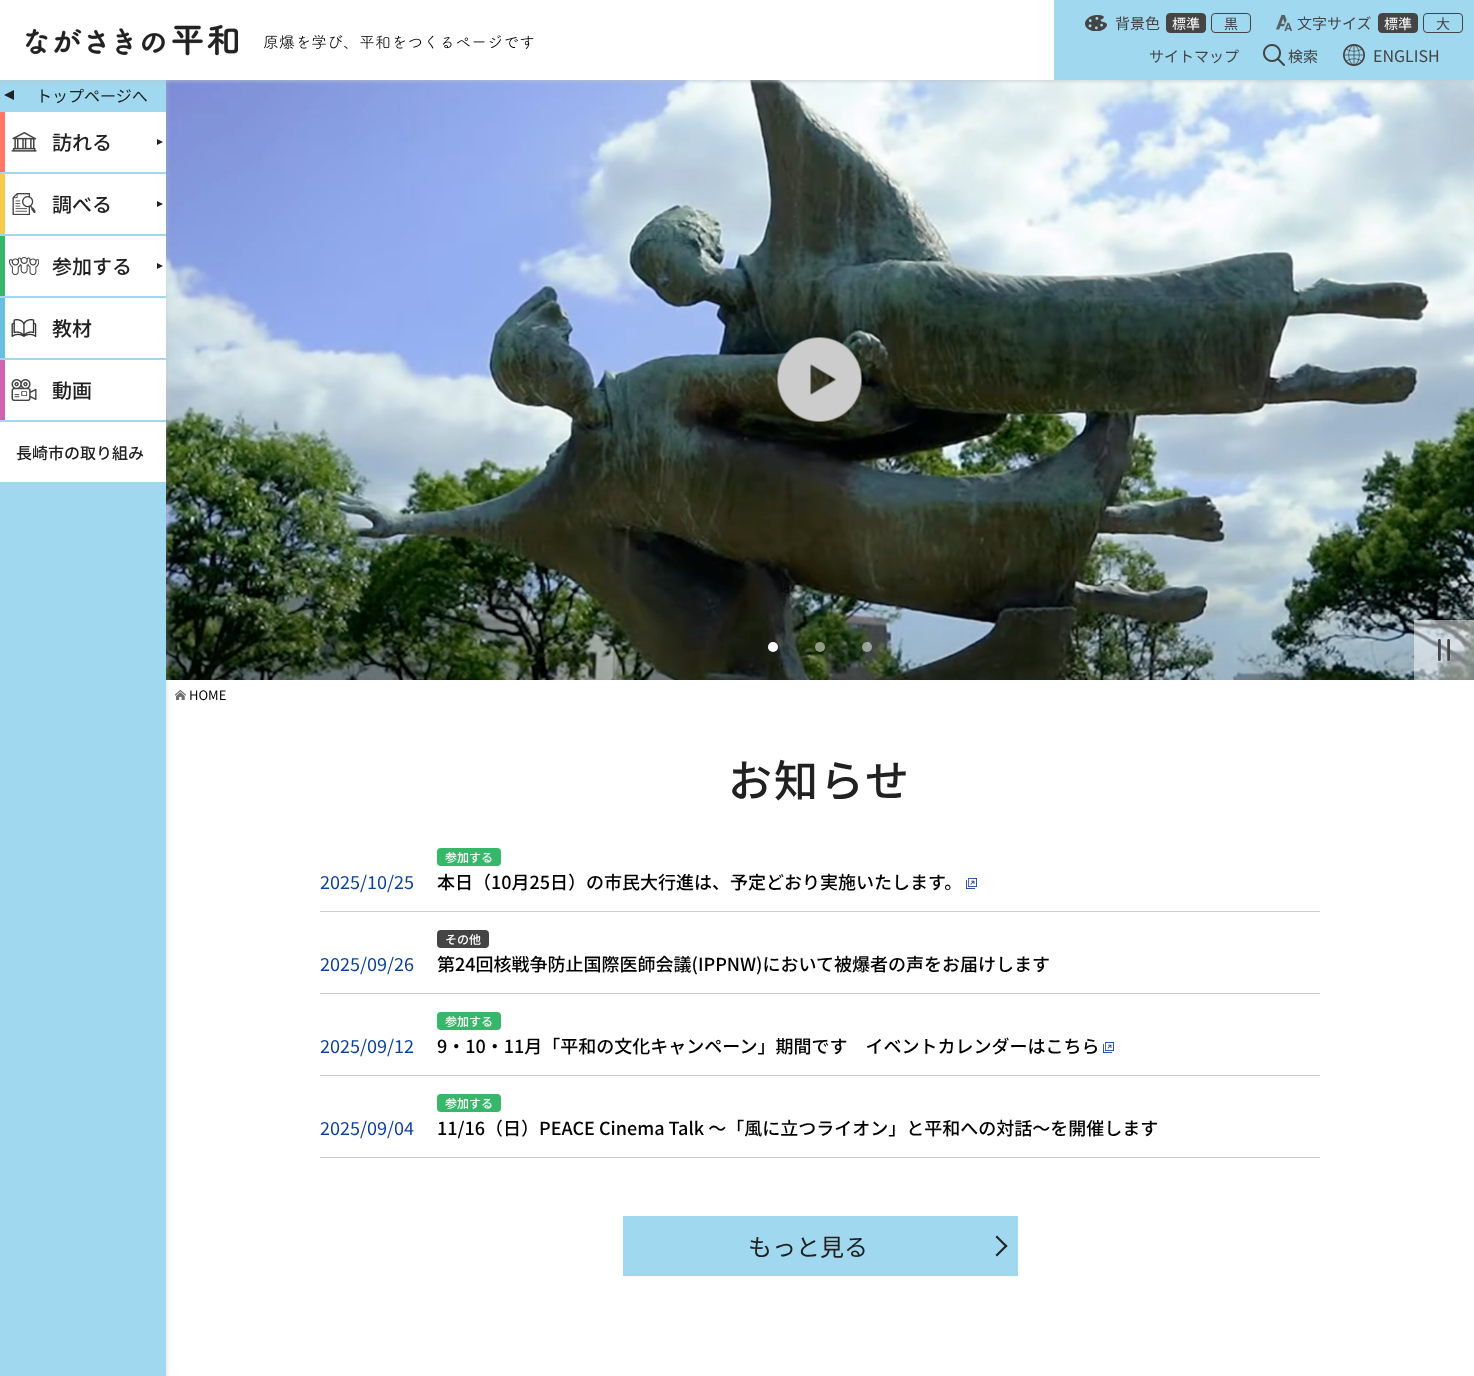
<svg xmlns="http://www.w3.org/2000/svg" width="1474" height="1376">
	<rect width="100%" height="100%" fill="#FFFFFF" />
	<image x="166" y="80" width="1308" height="600" href="assets/img12.png" />
	<image x="174" y="690" width="12" height="10" href="assets/img15.png" />
	<rect x="0" y="3" width="166" height="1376" fill="#ACBBC1" fill-opacity="0.5" filter="blur(3px)" />
	<rect x="0" y="80" width="166" height="1296" fill="#A0D8EF" />
	<rect x="0" y="2" width="1474" height="80" fill="#BBC6CB" fill-opacity="0.5" filter="blur(1.5px)" />
	<rect x="0" y="0" width="1054" height="80" fill="#FFFFFF" />
	<image x="26" y="25" width="212" height="31" href="assets/img1.png" />
	<image x="264" y="34" width="270" height="15" href="assets/img2.png" />
	<rect x="1054" y="0" width="420" height="80" fill="#A0D8EF" />
	<image x="1085" y="15" width="22" height="16" href="assets/img3.png" />
	<text x="1115" y="29" font-family="Noto Sans JP" font-size="15" fill="#444444">背景色</text>
	<rect x="1166.5" y="13.5" width="39" height="19" rx="3.5" fill="#444444" stroke="#444444" />
	<text x="1172" y="29" font-family="Noto Sans JP" font-size="14" fill="#FFFFFF">標準</text>
	<rect x="1211.5" y="13.5" width="39" height="19" rx="3.5" fill="none" stroke="#444444" />
	<text x="1224" y="29" font-family="Noto Sans JP" font-size="14" fill="#444444">黒</text>
	<image x="1276" y="15" width="16" height="16" href="assets/img4.png" />
	<text x="1297" y="29" font-family="Noto Sans JP" font-size="15" fill="#444444">文字サイズ</text>
	<rect x="1378.5" y="13.5" width="39" height="19" rx="3.5" fill="#444444" stroke="#444444" />
	<text x="1384" y="29" font-family="Noto Sans JP" font-size="14" fill="#FFFFFF">標準</text>
	<rect x="1423.5" y="13.5" width="39" height="19" rx="3.5" fill="none" stroke="#444444" />
	<text x="1436" y="29" font-family="Noto Sans JP" font-size="14" fill="#444444">大</text>
	<text x="1149" y="62" font-family="Noto Sans JP" font-size="15" fill="#444444">サイトマップ</text>
	<image x="1263" y="44" width="22" height="22" href="assets/img5.png" />
	<text x="1288" y="62" font-family="Noto Sans JP" font-size="15" fill="#444444">検索</text>
	<image x="1343" y="44" width="22" height="22" href="assets/img6.png" />
	<text x="1373" y="62" font-family="Noto Sans JP" font-size="16" fill="#444444">ENGLISH</text>
	<path d="M14 90V100L4 95Z" fill="#222222" />
	<text x="36" y="102" font-family="Noto Sans JP" font-size="16" fill="#212121">トップページへ</text>
	<rect x="5" y="112" width="161" height="60" fill="#FFFFFF" />
	<rect x="0" y="112" width="5" height="60" fill="#FF7865" />
	<image x="11" y="132" width="26" height="20" href="assets/img7.png" />
	<text x="52" y="150" font-family="Noto Sans JP" font-size="20" font-weight="500" fill="#212121">訪れる</text>
	<path d="M157 145V139L163 142Z" fill="#222222" />
	<rect x="5" y="174" width="161" height="60" fill="#FFFFFF" />
	<rect x="0" y="174" width="5" height="60" fill="#F7CA4A" />
	<image x="12" y="193" width="24" height="22" href="assets/img8.png" />
	<text x="52" y="212" font-family="Noto Sans JP" font-size="20" font-weight="500" fill="#212121">調べる</text>
	<path d="M157 207V201L163 204Z" fill="#222222" />
	<rect x="5" y="236" width="161" height="60" fill="#FFFFFF" />
	<rect x="0" y="236" width="5" height="60" fill="#37B76A" />
	<image x="9" y="257" width="30" height="18" href="assets/img9.png" />
	<text x="52" y="274" font-family="Noto Sans JP" font-size="20" font-weight="500" fill="#212121">参加する</text>
	<path d="M157 269V263L163 266Z" fill="#222222" />
	<rect x="5" y="298" width="161" height="60" fill="#FFFFFF" />
	<rect x="0" y="298" width="5" height="60" fill="#67C0E0" />
	<image x="11" y="319" width="26" height="18" href="assets/img10.png" />
	<text x="52" y="336" font-family="Noto Sans JP" font-size="20" font-weight="500" fill="#212121">教材</text>
	<rect x="5" y="360" width="161" height="60" fill="#FFFFFF" />
	<rect x="0" y="360" width="5" height="60" fill="#D162AF" />
	<image x="11" y="379" width="26" height="22" href="assets/img11.png" />
	<text x="52" y="398" font-family="Noto Sans JP" font-size="20" font-weight="500" fill="#212121">動画</text>
	<rect x="0" y="422" width="166" height="60" fill="#FFFFFF" />
	<text x="16" y="459" font-family="Noto Sans JP" font-size="16" font-weight="500" fill="#212121">長崎市の取り組み</text>
	<image x="777" y="337" width="85" height="85" href="assets/img13.png" />
	<circle cx="773" cy="647" r="5" fill="#FFFFFF" />
	<circle cx="820" cy="647" r="5" fill="#FFFFFF" fill-opacity="0.5" />
	<circle cx="867" cy="647" r="5" fill="#FFFFFF" fill-opacity="0.5" />
	<rect x="1414" y="620" width="60" height="60" fill="#FFFFFF" fill-opacity="0.5" />
	<image x="1438" y="639" width="12" height="22" href="assets/img14.png" />
	<text x="189" y="700" font-family="Noto Sans JP" font-size="13" fill="#000000">HOME</text>
	<text x="728" y="797" font-family="Noto Sans JP" font-size="44" font-weight="500" letter-spacing="2" fill="#212121">お知らせ</text>
	<rect x="320" y="911" width="1000" height="1" fill="#CBCBCB" />
	<text x="320" y="889" font-family="Noto Sans JP" font-size="18" fill="#0B419A">2025/10/25</text>
	<rect x="437" y="848" width="64" height="18" rx="4" fill="#37B76A" />
	<text x="445" y="862" font-family="Noto Sans JP" font-size="12" font-weight="500" fill="#FFFFFF">参加する</text>
	<text x="437" y="889" font-family="Noto Sans JP" font-size="18" font-weight="500" fill="#000000">本日（10月25日）の市民大行進は、予定どおり実施いたします。</text>
	<image x="966" y="878" width="11" height="11" href="assets/img16.png" />
	<rect x="320" y="993" width="1000" height="1" fill="#CBCBCB" />
	<text x="320" y="971" font-family="Noto Sans JP" font-size="18" fill="#0B419A">2025/09/26</text>
	<rect x="437" y="930" width="52" height="18" rx="4" fill="#444444" />
	<text x="445" y="944" font-family="Noto Sans JP" font-size="12" font-weight="500" fill="#FFFFFF">その他</text>
	<text x="437" y="971" font-family="Noto Sans JP" font-size="18" font-weight="500" fill="#000000">第24回核戦争防止国際医師会議(IPPNW)において被爆者の声をお届けします</text>
	<rect x="320" y="1075" width="1000" height="1" fill="#CBCBCB" />
	<text x="320" y="1053" font-family="Noto Sans JP" font-size="18" fill="#0B419A">2025/09/12</text>
	<rect x="437" y="1012" width="64" height="18" rx="4" fill="#37B76A" />
	<text x="445" y="1026" font-family="Noto Sans JP" font-size="12" font-weight="500" fill="#FFFFFF">参加する</text>
	<text x="437" y="1053" font-family="Noto Sans JP" font-size="18" font-weight="500" fill="#000000">9・10・11月「平和の文化キャンペーン」期間です　イベントカレンダーはこちら</text>
	<image x="1103" y="1042" width="11" height="11" href="assets/img16.png" />
	<rect x="320" y="1157" width="1000" height="1" fill="#CBCBCB" />
	<text x="320" y="1135" font-family="Noto Sans JP" font-size="18" fill="#0B419A">2025/09/04</text>
	<rect x="437" y="1094" width="64" height="18" rx="4" fill="#37B76A" />
	<text x="445" y="1108" font-family="Noto Sans JP" font-size="12" font-weight="500" fill="#FFFFFF">参加する</text>
	<text x="437" y="1135" font-family="Noto Sans JP" font-size="18" font-weight="500" fill="#000000">11/16（日）PEACE Cinema Talk 〜「風に立つライオン」と平和への対話〜を開催します</text>
	<rect x="623" y="1216" width="395" height="60" fill="#A0D8EF" />
	<text x="748" y="1256" font-family="Noto Sans JP" font-size="24" fill="#212121">もっと見る</text>
	<path d="M997 1235.5L1007.5 1246L1006 1247.5L995.5 1237Z" fill="#222222" />
	<path d="M1006 1244.5L1007.5 1246L997 1256.5L995.5 1255Z" fill="#222222" />
</svg>
